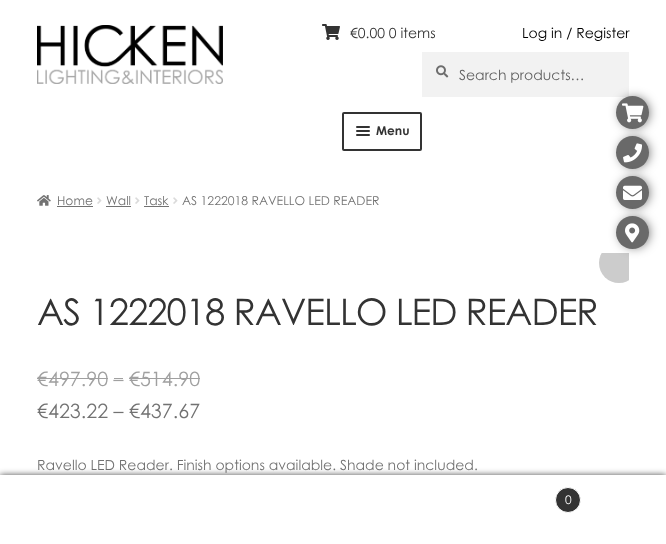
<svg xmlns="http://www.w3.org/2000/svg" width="666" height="544">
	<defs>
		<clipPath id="clip1"><rect x="37" y="253" width="592" height="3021" /></clipPath>
	</defs>
	<rect width="100%" height="100%" fill="#FFFFFF" />
	<image x="37" y="195" width="14" height="11" href="assets/img1.png" />
	<text x="57" y="205" font-family="Century Gothic" font-size="12.25" fill="#727272">Home</text>
	<rect x="57" y="206" width="36" height="1" fill="#727272" />
	<image x="97" y="197" width="5" height="7" href="assets/img2.png" />
	<text x="106" y="205" font-family="Century Gothic" font-size="12.25" fill="#727272">Wall</text>
	<rect x="106" y="206" width="25" height="1" fill="#727272" />
	<image x="135" y="197" width="5" height="7" href="assets/img2.png" />
	<text x="144" y="205" font-family="Century Gothic" font-size="12.25" fill="#727272">Task</text>
	<rect x="144" y="206" width="25" height="1" fill="#727272" />
	<image x="173" y="197" width="5" height="7" href="assets/img2.png" />
	<text x="182" y="205" font-family="Century Gothic" font-size="12.25" fill="#727272">AS 1222018 RAVELLO LED READER</text>
	<image x="322" y="24" width="18" height="16" href="assets/img3.png" />
	<text x="350" y="38" font-family="Century Gothic" font-size="14" fill="#333333">€0.00 0 items</text>
	<rect x="343" y="113" width="78" height="37" rx="1" fill="none" stroke="#333333" stroke-width="2" />
	<rect x="356" y="126" width="14" height="2" rx="1" fill="#333333" />
	<rect x="356" y="130" width="14" height="2" rx="1" fill="#333333" />
	<text x="376" y="135" font-family="Century Gothic" font-size="12.25" font-weight="700" fill="#333333">Menu</text>
	<rect x="356" y="134" width="14" height="2" rx="1" fill="#333333" />
	<image x="37" y="25" width="186" height="59" href="assets/img4.png" />
	<text x="522" y="38" font-family="Century Gothic" font-size="14" fill="#000000">Log in / Register</text>
	<rect x="422" y="52" width="207" height="45" fill="#F2F2F2" />
	<image x="436" y="65" width="13" height="13" href="assets/img5.png" />
	<text x="459" y="80" font-family="Century Gothic" font-size="14" fill="#616161">Search products…</text>
	<rect x="621" y="99" width="27" height="27" rx="13.5" fill="#000000" fill-opacity="0.75" filter="blur(6px)" />
	<circle cx="632.5" cy="112.5" r="16.5" fill="#696969" />
	<rect x="621" y="139" width="27" height="27" rx="13.5" fill="#000000" fill-opacity="0.75" filter="blur(6px)" />
	<image x="622" y="103" width="22" height="20" href="assets/img6.png" />
	<circle cx="632.5" cy="152.5" r="16.5" fill="#696969" />
	<rect x="621" y="179" width="27" height="27" rx="13.5" fill="#000000" fill-opacity="0.75" filter="blur(6px)" />
	<image x="623" y="143" width="19" height="20" href="assets/img7.png" />
	<circle cx="632.5" cy="192.5" r="16.5" fill="#696969" />
	<image x="623" y="185" width="19" height="15" href="assets/img8.png" />
	<g clip-path="url(#clip1)">
		<circle cx="619" cy="263" r="20" fill="#CCCCCC" />
	</g>
	<rect x="621" y="219" width="27" height="27" rx="13.5" fill="#000000" fill-opacity="0.75" filter="blur(6px)" />
	<circle cx="632.5" cy="232.5" r="16.5" fill="#696969" />
	<image x="625" y="223" width="15" height="20" href="assets/img9.png" />
	<text x="37" y="325" font-family="Century Gothic" font-size="36.6" letter-spacing="-1" fill="#333333">AS 1222018 RAVELLO LED READER</text>
	<text x="37" y="386" font-family="Century Gothic" font-size="19.75" fill="#A0A0A0">€497.90 – €514.90</text>
	<rect x="37" y="378" width="71" height="1" fill="#A0A0A0" />
	<rect x="114" y="378" width="9" height="1" fill="#A0A0A0" />
	<rect x="129" y="378" width="71" height="1" fill="#A0A0A0" />
	<text x="37" y="418" font-family="Century Gothic" font-size="19.75" fill="#727272">€423.22 – €437.67</text>
	<text x="37" y="470" font-family="Century Gothic" font-size="14" fill="#727272">Ravello LED Reader. Finish options available. Shade not included.</text>
	<rect x="0" y="475" width="666" height="69" fill="#000000" fill-opacity="0.7" filter="blur(3px)" />
	<rect x="0" y="475" width="666" height="69" fill="#FFFFFF" />
	<circle cx="568" cy="500" r="12.5" fill="#333333" stroke="#FFFFFF" />
	<text x="565" y="504" font-family="Century Gothic" font-size="12" fill="#FFFFFF">0</text>
</svg>
